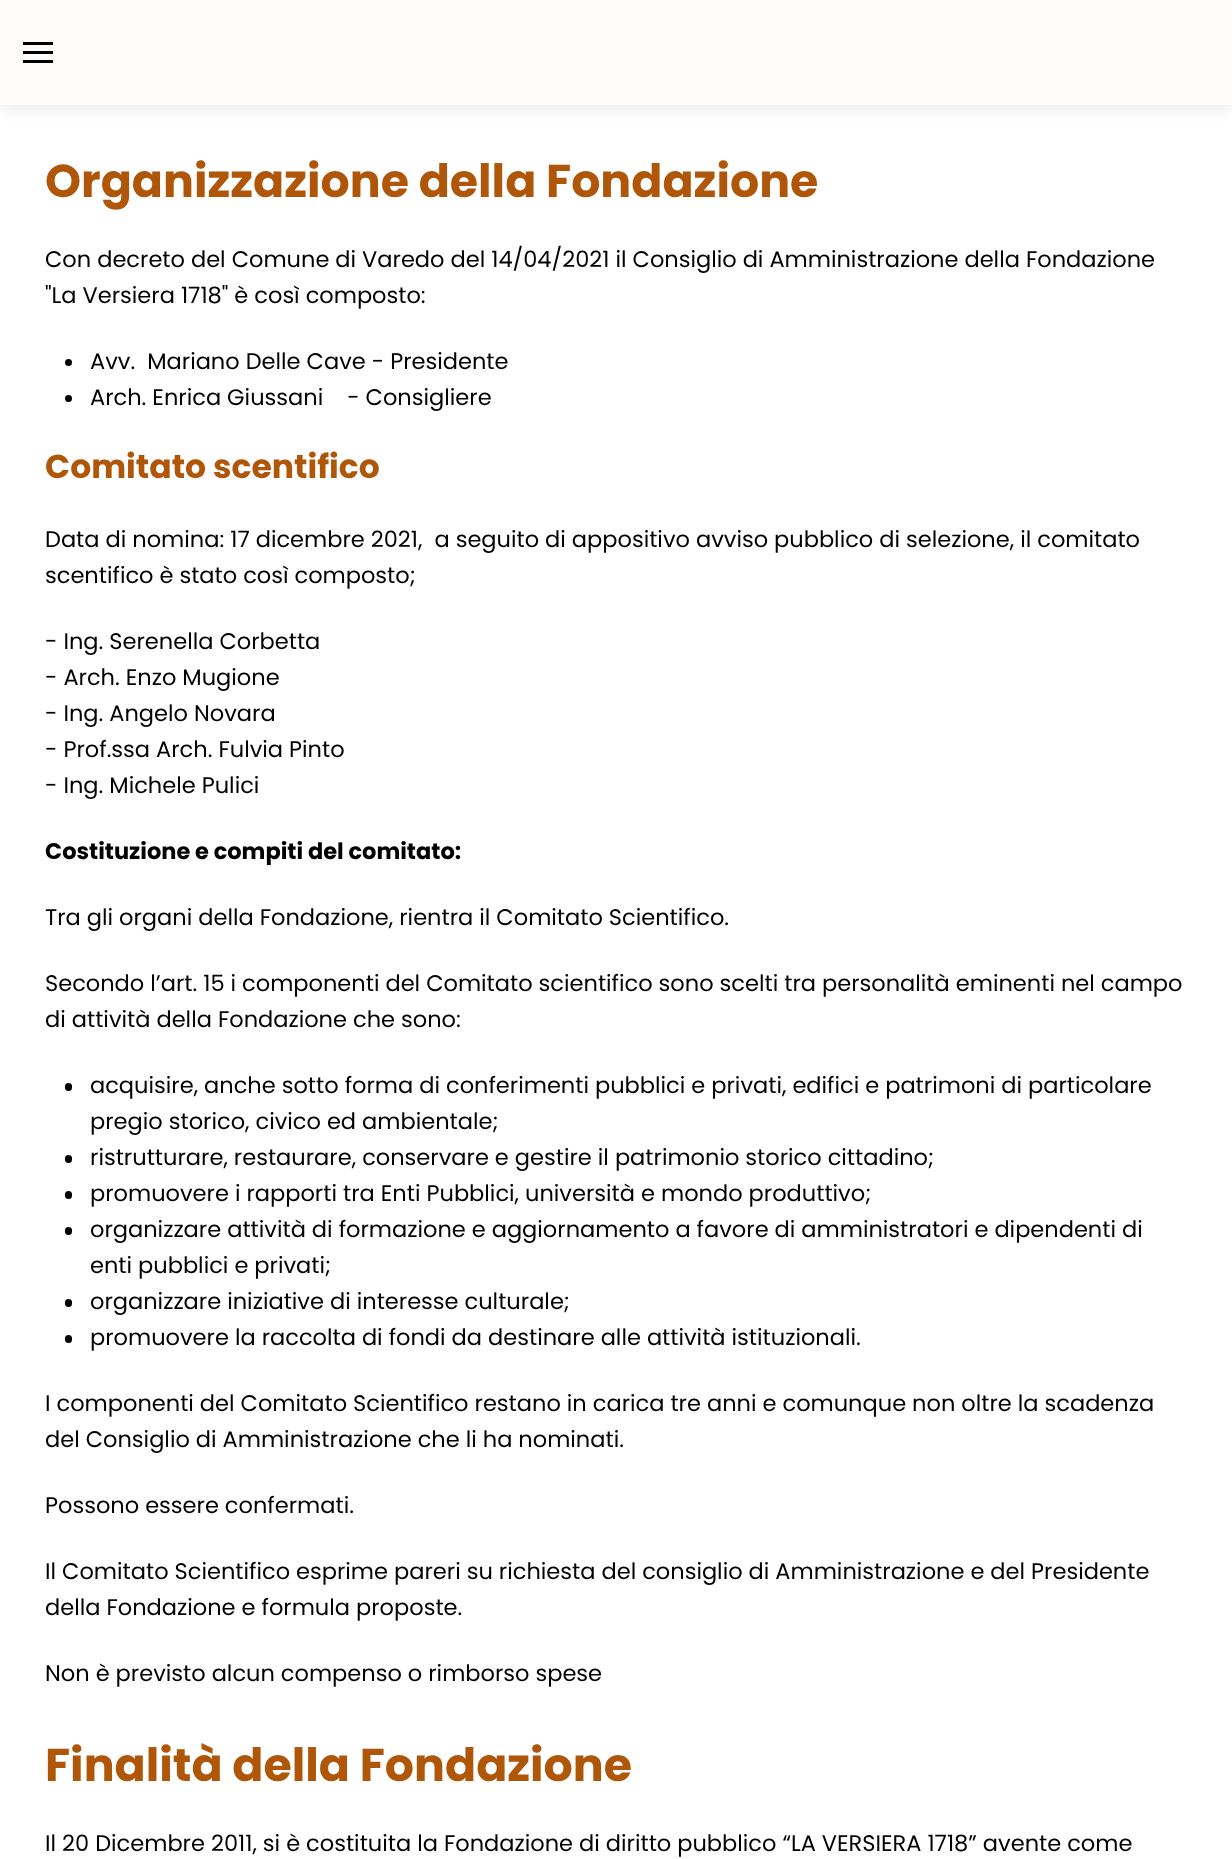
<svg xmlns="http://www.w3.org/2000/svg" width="1232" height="1859">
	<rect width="100%" height="100%" fill="#FFFFFF" />
	<rect x="0" y="3" width="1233" height="105" fill="#000000" fill-opacity="0.09" filter="blur(8px)" />
	<rect x="0" y="0" width="1232" height="105" fill="#FFFCF9" />
	<rect x="23" y="42" width="30" height="3" fill="#000000" />
	<rect x="23" y="51" width="30" height="3" fill="#000000" />
	<rect x="23" y="60" width="30" height="3" fill="#000000" />
	<text x="45" y="197" font-family="Poppins" font-size="45.9" font-weight="700" fill="#B05609">Organizzazione della Fondazione</text>
	<g font-family="Poppins" font-size="22.5" fill="#000000">
		<text x="45" y="267">Con decreto del Comune di Varedo del 14/04/2021 il Consiglio di Amministrazione della Fondazione</text>
		<text x="45" y="303">"La Versiera 1718" è così composto:</text>
	</g>
	<circle cx="68.5" cy="362.5" r="3.5" fill="#000000" />
	<text x="90" y="369" font-family="Poppins" font-size="22.5" fill="#000000" xml:space="preserve">Avv.  Mariano Delle Cave - Presidente</text>
	<circle cx="68.5" cy="398.5" r="3.5" fill="#000000" />
	<text x="90" y="405" font-family="Poppins" font-size="22.5" fill="#000000" xml:space="preserve">Arch. Enrica Giussani    - Consigliere</text>
	<text x="45" y="478" font-family="Poppins" font-size="33" font-weight="700" fill="#B05609">Comitato scentifico</text>
	<g font-family="Poppins" font-size="22.5" fill="#000000">
		<text x="45" y="547" xml:space="preserve">Data di nomina: 17 dicembre 2021,  a seguito di appositivo avviso pubblico di selezione, il comitato</text>
		<text x="45" y="583">scentifico è stato così composto;</text>
		<text x="45" y="649">- Ing. Serenella Corbetta</text>
		<text x="45" y="685">- Arch. Enzo Mugione</text>
		<text x="45" y="721">- Ing. Angelo Novara</text>
		<text x="45" y="757">- Prof.ssa Arch. Fulvia Pinto</text>
		<text x="45" y="793">- Ing. Michele Pulici</text>
	</g>
	<text x="45" y="859" font-family="Poppins" font-size="22.5" font-weight="700" fill="#000000">Costituzione e compiti del comitato:</text>
	<g font-family="Poppins" font-size="22.5" fill="#000000">
		<text x="45" y="925">Tra gli organi della Fondazione, rientra il Comitato Scientifico.</text>
		<text x="45" y="991">Secondo l’art. 15 i componenti del Comitato scientifico sono scelti tra personalità eminenti nel campo</text>
		<text x="45" y="1027">di attività della Fondazione che sono:</text>
	</g>
	<rect x="65" y="1083" width="7" height="8" rx="3.5" fill="#000000" />
	<g font-family="Poppins" font-size="22.5" fill="#000000">
		<text x="90" y="1093">acquisire, anche sotto forma di conferimenti pubblici e privati, edifici e patrimoni di particolare</text>
		<text x="90" y="1129">pregio storico, civico ed ambientale;</text>
	</g>
	<rect x="65" y="1155" width="7" height="8" rx="3.5" fill="#000000" />
	<text x="90" y="1165" font-family="Poppins" font-size="22.5" fill="#000000">ristrutturare, restaurare, conservare e gestire il patrimonio storico cittadino;</text>
	<rect x="65" y="1191" width="7" height="8" rx="3.5" fill="#000000" />
	<text x="90" y="1201" font-family="Poppins" font-size="22.5" fill="#000000">promuovere i rapporti tra Enti Pubblici, università e mondo produttivo;</text>
	<rect x="65" y="1227" width="7" height="8" rx="3.5" fill="#000000" />
	<g font-family="Poppins" font-size="22.5" fill="#000000">
		<text x="90" y="1237">organizzare attività di formazione e aggiornamento a favore di amministratori e dipendenti di</text>
		<text x="90" y="1273">enti pubblici e privati;</text>
	</g>
	<rect x="65" y="1299" width="7" height="8" rx="3.5" fill="#000000" />
	<text x="90" y="1309" font-family="Poppins" font-size="22.5" fill="#000000">organizzare iniziative di interesse culturale;</text>
	<rect x="65" y="1335" width="7" height="8" rx="3.5" fill="#000000" />
	<g font-family="Poppins" font-size="22.5" fill="#000000">
		<text x="90" y="1345">promuovere la raccolta di fondi da destinare alle attività istituzionali.</text>
		<text x="45" y="1411">I componenti del Comitato Scientifico restano in carica tre anni e comunque non oltre la scadenza</text>
		<text x="45" y="1447">del Consiglio di Amministrazione che li ha nominati.</text>
		<text x="45" y="1513">Possono essere confermati.</text>
		<text x="45" y="1579">Il Comitato Scientifico esprime pareri su richiesta del consiglio di Amministrazione e del Presidente</text>
		<text x="45" y="1615">della Fondazione e formula proposte.</text>
		<text x="45" y="1681">Non è previsto alcun compenso o rimborso spese</text>
	</g>
	<text x="45" y="1781" font-family="Poppins" font-size="45.9" font-weight="700" fill="#B05609">Finalità della Fondazione</text>
	<text x="45" y="1851" font-family="Poppins" font-size="22.5" fill="#000000">Il 20 Dicembre 2011, si è costituita la Fondazione di diritto pubblico “LA VERSIERA 1718” avente come</text>
</svg>
